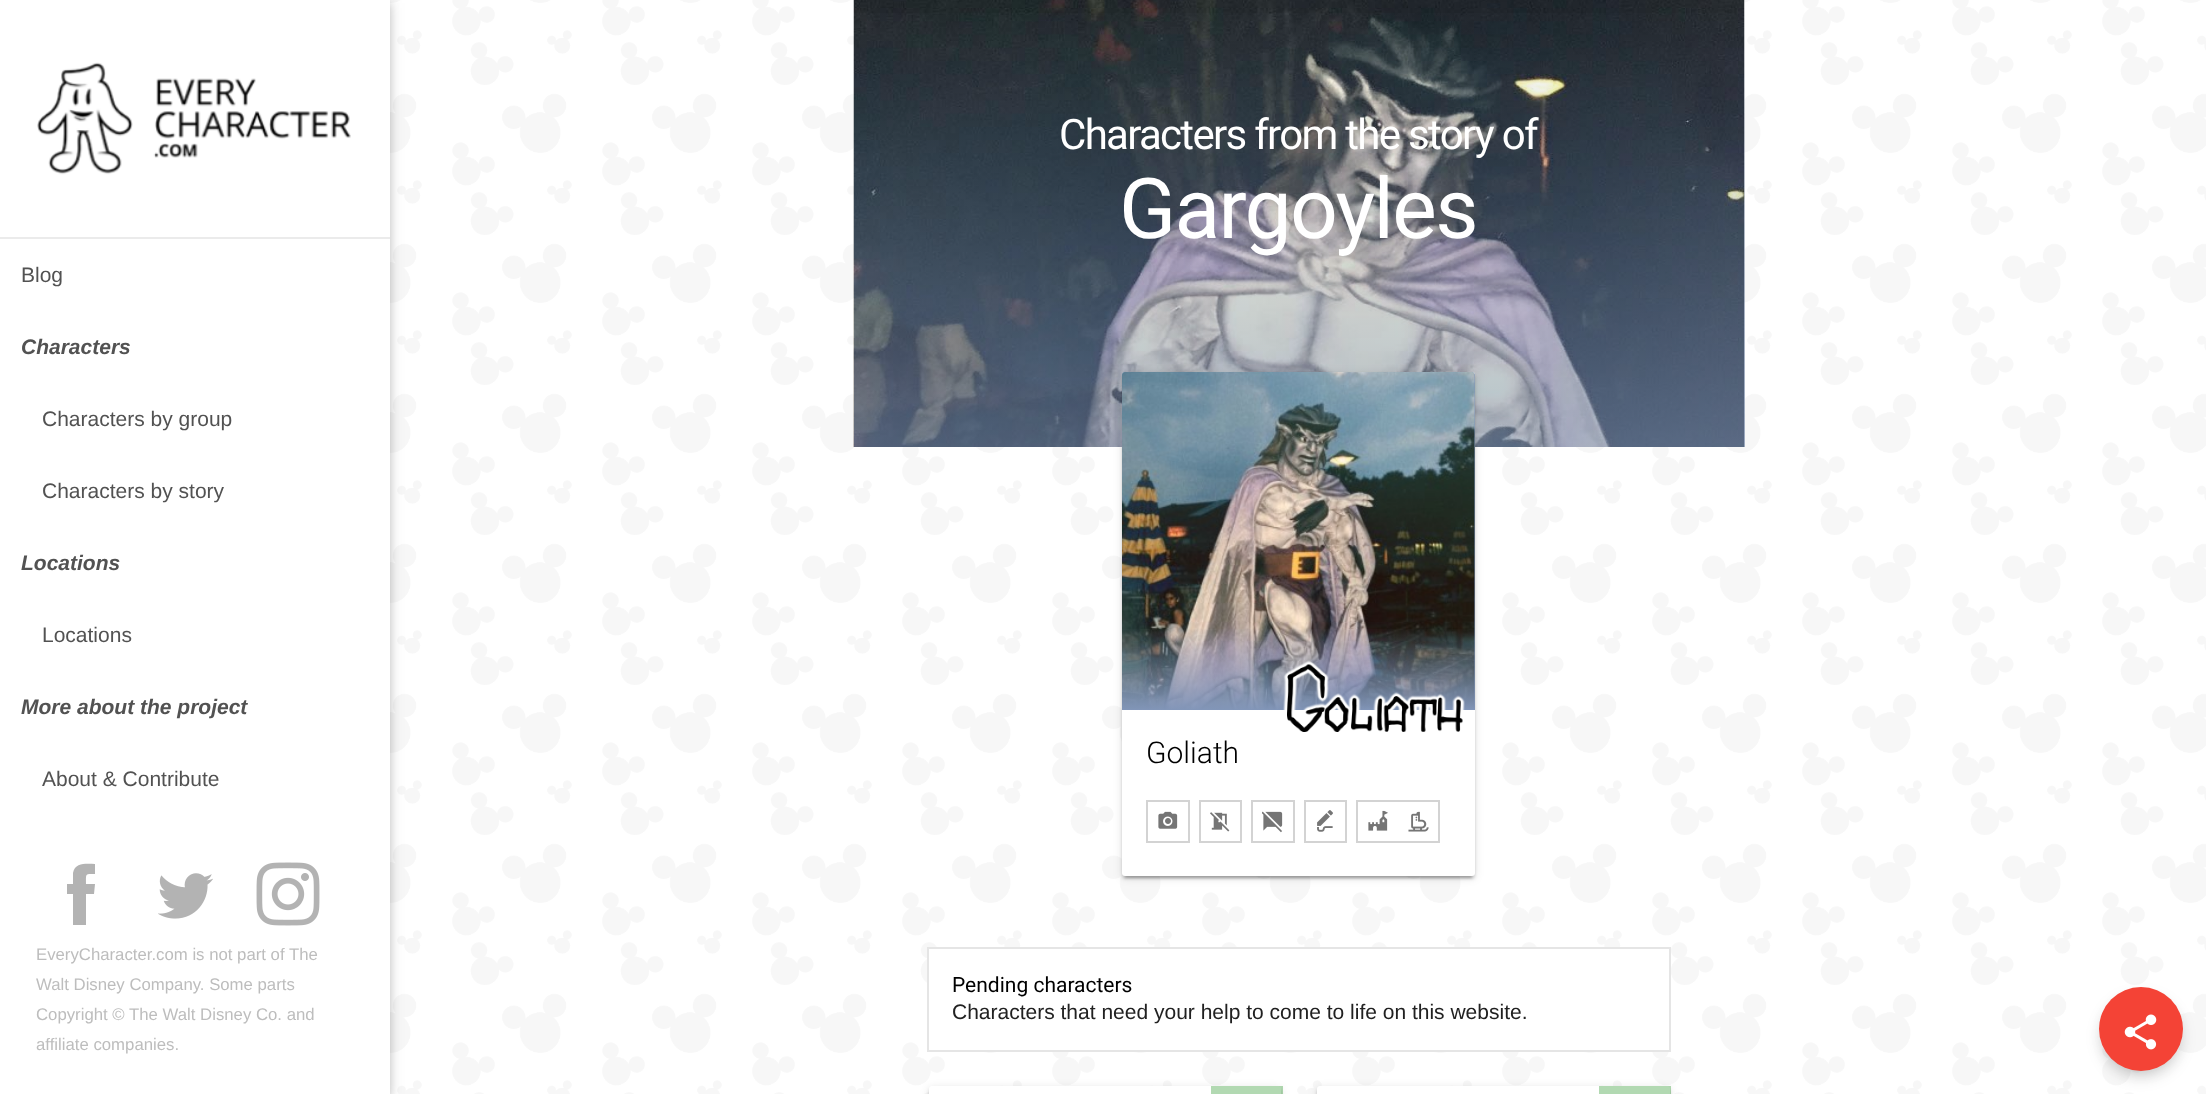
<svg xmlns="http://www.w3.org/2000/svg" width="2206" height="1094">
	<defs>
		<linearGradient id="g1" gradientUnits="userSpaceOnUse" x1="1299" y1="-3" x2="1299" y2="447"><stop offset="0" stop-color="#8296B9" stop-opacity="0" /><stop offset="1" stop-color="#8296B9" stop-opacity="0.6" /></linearGradient>
		<linearGradient id="g2" gradientUnits="userSpaceOnUse" x1="1298" y1="627" x2="1298" y2="711"><stop offset="0" stop-color="#8296B9" stop-opacity="0" /><stop offset="1" stop-color="#8296B9" /></linearGradient>
	</defs>
	<rect width="100%" height="100%" fill="#FFFFFF" />
	<image x="390" y="0" width="1816" height="1094" href="assets/img1.png" />
	<rect x="0" y="3" width="390" height="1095" fill="#000000" fill-opacity="0.12" filter="blur(7.5px)" />
	<rect x="0" y="3" width="390" height="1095" fill="#000000" fill-opacity="0.16" filter="blur(4px)" />
	<rect x="0" y="0" width="390" height="1094" fill="#FFFFFF" />
	<rect x="0" y="237" width="390" height="2" fill="#EBEBEB" />
	<image x="37" y="62" width="314" height="113" href="assets/img2.png" />
	<text x="21" y="282" font-family="Liberation Sans" font-size="21" fill="#525252">Blog</text>
	<text x="21" y="354" font-family="Liberation Sans" font-size="21" font-weight="700" font-style="italic" fill="#525252">Characters</text>
	<g font-family="Liberation Sans" font-size="21" fill="#525252">
		<text x="42" y="426">Characters by group</text>
		<text x="42" y="498">Characters by story</text>
	</g>
	<text x="21" y="570" font-family="Liberation Sans" font-size="21" font-weight="700" font-style="italic" fill="#525252">Locations</text>
	<text x="42" y="642" font-family="Liberation Sans" font-size="21" fill="#525252">Locations</text>
	<text x="21" y="714" font-family="Liberation Sans" font-size="21" font-weight="700" font-style="italic" fill="#525252">More about the project</text>
	<text x="42" y="786" font-family="Liberation Sans" font-size="21" fill="#525252">About &amp; Contribute</text>
	<path d="M73 884H67V894H73V925H86V894H94L95 884H86C86 873 85 874 95 874V864C87 864 75 862 73 873Z" fill="#B3B3B3" />
	<image x="158" y="873" width="55" height="46" href="assets/img3.png" />
	<image x="256" y="862" width="64" height="64" href="assets/img4.png" />
	<g font-family="Liberation Sans" font-size="16.75" fill="#BDBDBD">
		<text x="36" y="960">EveryCharacter.com is not part of The</text>
		<text x="36" y="990">Walt Disney Company. Some parts</text>
		<text x="36" y="1020">Copyright © The Walt Disney Co. and</text>
		<text x="36" y="1050">affiliate companies.</text>
	</g>
	<image x="853" y="0" width="892" height="447" href="assets/img5.png" />
	<rect x="854" y="13" width="891" height="434" fill="url(#g1)" />
	<text x="1059" y="149" font-family="Roboto" font-size="42" letter-spacing="-1.7" fill="#FFFFFF">Characters from the story of</text>
	<text x="1119" y="238" font-family="Roboto" font-size="84" letter-spacing="-1.7" fill="#FFFFFF">Gargoyles</text>
	<rect x="1122" y="374" width="353" height="504" rx="3" fill="#000000" fill-opacity="0.12" filter="blur(4px)" />
	<rect x="1125" y="380" width="347" height="498" fill="#000000" fill-opacity="0.2" filter="blur(1px)" />
	<rect x="1122" y="375" width="353" height="504" rx="3" fill="#000000" fill-opacity="0.14" filter="blur(1.5px)" />
	<rect x="1122" y="372" width="353" height="504" rx="3" fill="#FFFFFF" />
	<path d="M1125 372H1472C1473.5 372 1475 373.5 1475 375V710H1122V375C1122 373.5 1123.5 372 1125 372Z" fill="#8296B9" />
	<image x="1122" y="372" width="353" height="338" href="assets/img6.png" />
	<rect x="1122" y="629" width="353" height="81" fill="url(#g2)" />
	<image x="1283" y="660" width="182" height="72" href="assets/img7.png" />
	<text x="1146" y="763" font-family="Roboto" font-size="30" font-weight="300" fill="#000000">Goliath</text>
	<rect x="1147" y="801" width="42" height="41" fill="none" stroke="#D3D3D3" stroke-width="2" />
	<image x="1158" y="811" width="20" height="18" href="assets/img8.png" />
	<rect x="1200" y="801" width="41" height="41" fill="none" stroke="#D3D3D3" stroke-width="2" />
	<image x="1210" y="812" width="20" height="20" href="assets/img9.png" />
	<rect x="1252" y="801" width="42" height="41" fill="none" stroke="#D3D3D3" stroke-width="2" />
	<image x="1262" y="811" width="21" height="22" href="assets/img10.png" />
	<rect x="1305" y="801" width="41" height="41" fill="none" stroke="#D3D3D3" stroke-width="2" />
	<image x="1317" y="810" width="16" height="22" href="assets/img11.png" />
	<rect x="1357" y="801" width="82" height="41" fill="none" stroke="#D3D3D3" stroke-width="2" />
	<image x="1368" y="810" width="20" height="21" href="assets/img12.png" />
	<image x="1408" y="811" width="21" height="21" href="assets/img13.png" />
	<rect x="929" y="949" width="740" height="101" fill="#FFFFFF" />
	<rect x="928" y="948" width="742" height="103" fill="none" stroke="#E5E5E5" stroke-width="2" />
	<text x="952" y="992" font-family="Roboto" font-size="21" fill="#000000">Pending characters</text>
	<text x="952" y="1019" font-family="Liberation Sans" font-size="21" fill="#212121">Characters that need your help to come to life on this website.</text>
	<rect x="929" y="1088" width="352" height="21" rx="3" fill="#000000" fill-opacity="0.12" filter="blur(4px)" />
	<rect x="929" y="1089" width="352" height="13" rx="3" fill="#000000" fill-opacity="0.14" filter="blur(1.5px)" />
	<rect x="929" y="1086" width="352" height="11" rx="3" fill="#FFFFFF" />
	<rect x="1211" y="1086" width="72" height="8" fill="#008000" fill-opacity="0.3" />
	<rect x="1317" y="1088" width="353" height="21" rx="3" fill="#000000" fill-opacity="0.12" filter="blur(4px)" />
	<rect x="1317" y="1089" width="353" height="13" rx="3" fill="#000000" fill-opacity="0.14" filter="blur(1.5px)" />
	<rect x="1317" y="1086" width="353" height="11" rx="3" fill="#FFFFFF" />
	<rect x="1599" y="1086" width="72" height="8" fill="#008000" fill-opacity="0.3" />
	<rect x="2109" y="1004" width="63" height="63" rx="31.5" fill="#000000" fill-opacity="0.15" filter="blur(9px)" />
	<rect x="2102" y="998" width="78" height="78" rx="39" fill="#000000" fill-opacity="0.18" filter="blur(8px)" />
	<circle cx="2141" cy="1029" r="42" fill="#F44336" />
	<image x="2124" y="1014" width="33" height="36" href="assets/img14.png" />
</svg>
